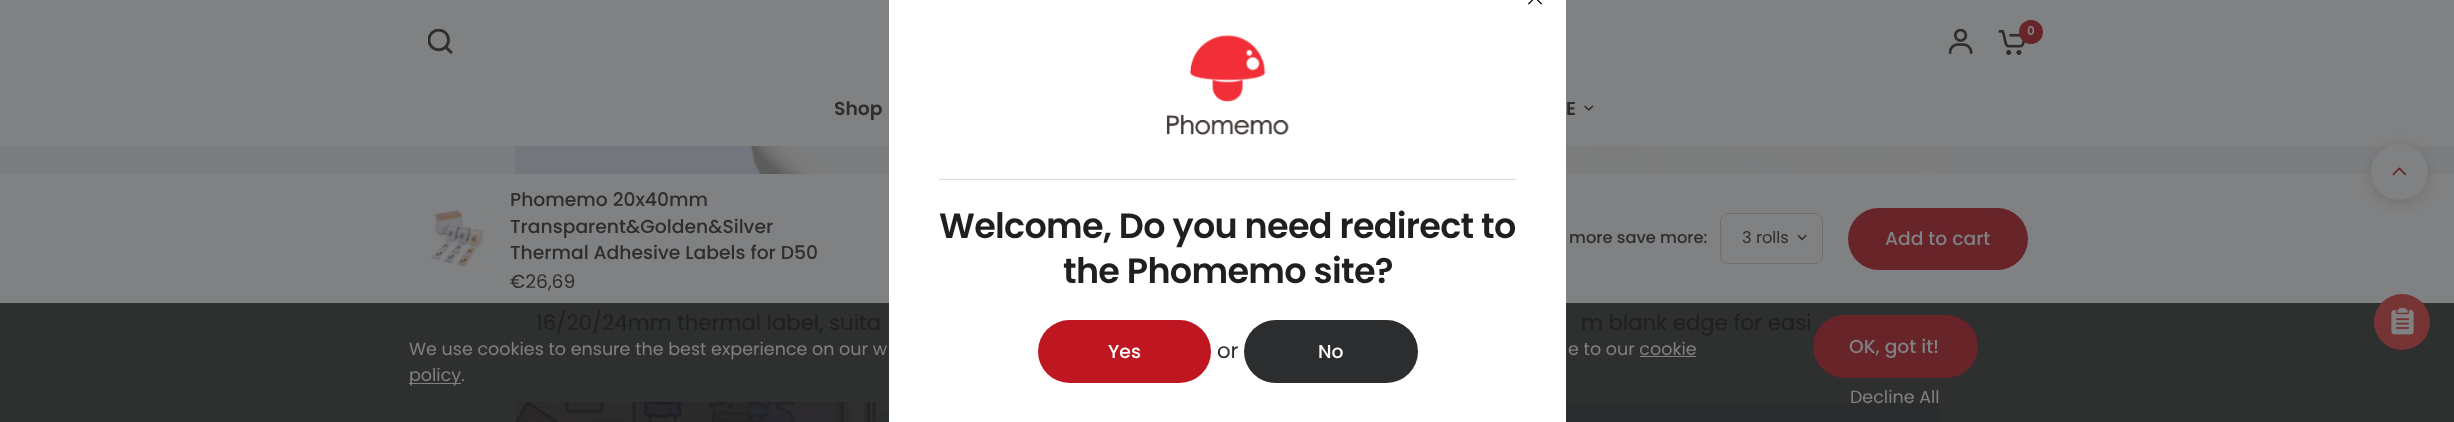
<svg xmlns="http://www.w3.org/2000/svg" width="2454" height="422">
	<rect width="100%" height="100%" fill="#7C7D7E" />
	<rect x="0" y="0" width="2454" height="146" fill="#808182" />
	<image x="428" y="29" width="25" height="25" href="assets/img1.png" />
	<image x="1949" y="29" width="24" height="25" href="assets/img2.png" />
	<image x="1998" y="30" width="27" height="25" href="assets/img3.png" />
	<circle cx="2031" cy="32" r="12" fill="#672429" />
	<text x="2027" y="35" font-family="Poppins" font-size="12" font-weight="600" fill="#808182">0</text>
	<g font-family="Poppins" font-size="18.75" font-weight="600" fill="#2C2D2E">
		<text x="834" y="115">Shop</text>
		<text x="1566" y="115">E</text>
	</g>
	<image x="1584" y="105" width="10" height="6" href="assets/img4.png" />
	<rect x="0" y="303" width="2454" height="119" fill="#2E2F2F" />
	<rect x="0" y="174" width="2454" height="129" fill="#808182" />
	<image x="431" y="210" width="54" height="57" href="assets/img5.png" />
	<g font-family="Poppins" font-size="18.75" font-weight="500" fill="#2C2D2E">
		<text x="510" y="206">Phomemo 20x40mm</text>
		<text x="510" y="233">Transparent&amp;Golden&amp;Silver</text>
		<text x="510" y="259">Thermal Adhesive Labels for D50</text>
	</g>
	<text x="510" y="288" font-family="Poppins" font-size="18.75" fill="#2C2D2E">€26,69</text>
	<text x="1569" y="243" font-family="Poppins" font-size="16.25" font-weight="500" fill="#2C2D2E">more save more:</text>
	<rect x="1720.5" y="213.5" width="102" height="50" rx="7.5" fill="none" stroke="#6F6F70" />
	<text x="1742" y="243" font-family="Poppins" font-size="16.25" fill="#2C2D2E">3 rolls</text>
	<path d="M1806 235.5L1802 239.5L1798.5 235.5" fill="none" stroke="#2C2D2E" stroke-width="1.4" stroke-linecap="round" stroke-linejoin="round" />
	<rect x="1848" y="208" width="180" height="62" rx="31" fill="#672429" />
	<text x="1885" y="245" font-family="Poppins" font-size="18.75" font-weight="500" fill="#808182">Add to cart</text>
	<path d="M1937.5 227.5C1952.5 227.5 1952.5 250 1937.5 250C1922.5 250 1922.5 227.5 1937.5 227.5" fill="none" stroke="#672429" stroke-width="2.3" />
	<image x="515" y="146" width="1425" height="28" href="assets/img6.png" />
	<g font-family="Poppins" font-size="21.25" fill="#1E1F1F">
		<text x="536" y="330">16/20/24mm thermal label, suita</text>
		<text x="1581" y="330">m blank edge for easi</text>
	</g>
	<image x="515" y="402" width="1425" height="20" href="assets/img7.png" />
	<rect x="889" y="0" width="677" height="422" fill="#FFFFFF" />
	<image x="1528" y="0" width="14" height="5" href="assets/img8.png" />
	<image x="1166" y="35" width="123" height="100" href="assets/img9.png" />
	<rect x="939" y="179" width="577" height="1" fill="#DADCE0" />
	<g font-family="Poppins" font-size="35" font-weight="600" letter-spacing="-0.7" fill="#1E1F1F">
		<text x="939" y="238">Welcome, Do you need redirect to</text>
		<text x="1063" y="283">the Phomemo site?</text>
	</g>
	<rect x="1038" y="320" width="173" height="63" rx="31.5" fill="#BF1721" />
	<text x="1108" y="358" font-family="Poppins" font-size="18.75" font-weight="500" fill="#FFFFFF">Yes</text>
	<text x="1217" y="358" font-family="Poppins" font-size="21.25" fill="#2C2D2E">or</text>
	<rect x="1244" y="320" width="174" height="63" rx="31.5" fill="#2C2D2E" />
	<text x="1318" y="358" font-family="Poppins" font-size="18.75" font-weight="500" fill="#FFFFFF">No</text>
	<circle cx="2402" cy="322" r="28" fill="#763435" />
	<image x="2391" y="308" width="23" height="27" href="assets/img10.png" />
	<rect x="2371" y="146" width="57" height="57" rx="28.5" fill="#1A1B1C" fill-opacity="0.15" filter="blur(6px)" />
	<rect x="2371" y="144" width="57" height="56" rx="28" fill="#808182" />
	<image x="2392" y="167" width="15" height="9" href="assets/img11.png" />
	<g font-family="Poppins" font-size="17.5" fill="#808182">
		<text x="409" y="355">We use cookies to ensure the best experience on our w</text>
		<text x="1568" y="355">e to our cookie</text>
	</g>
	<rect x="409" y="383" width="52" height="1" fill="#808182" />
	<text x="409" y="381" font-family="Poppins" font-size="17.5" fill="#808182">policy.</text>
	<rect x="1640" y="356" width="56" height="1" fill="#808182" />
	<rect x="1813" y="315" width="165" height="63" rx="31.5" fill="#672429" />
	<text x="1849" y="353" font-family="Poppins" font-size="18.75" font-weight="500" fill="#808182">OK, got it!</text>
	<text x="1850" y="403" font-family="Poppins" font-size="17.5" fill="#808182">Decline All</text>
</svg>
